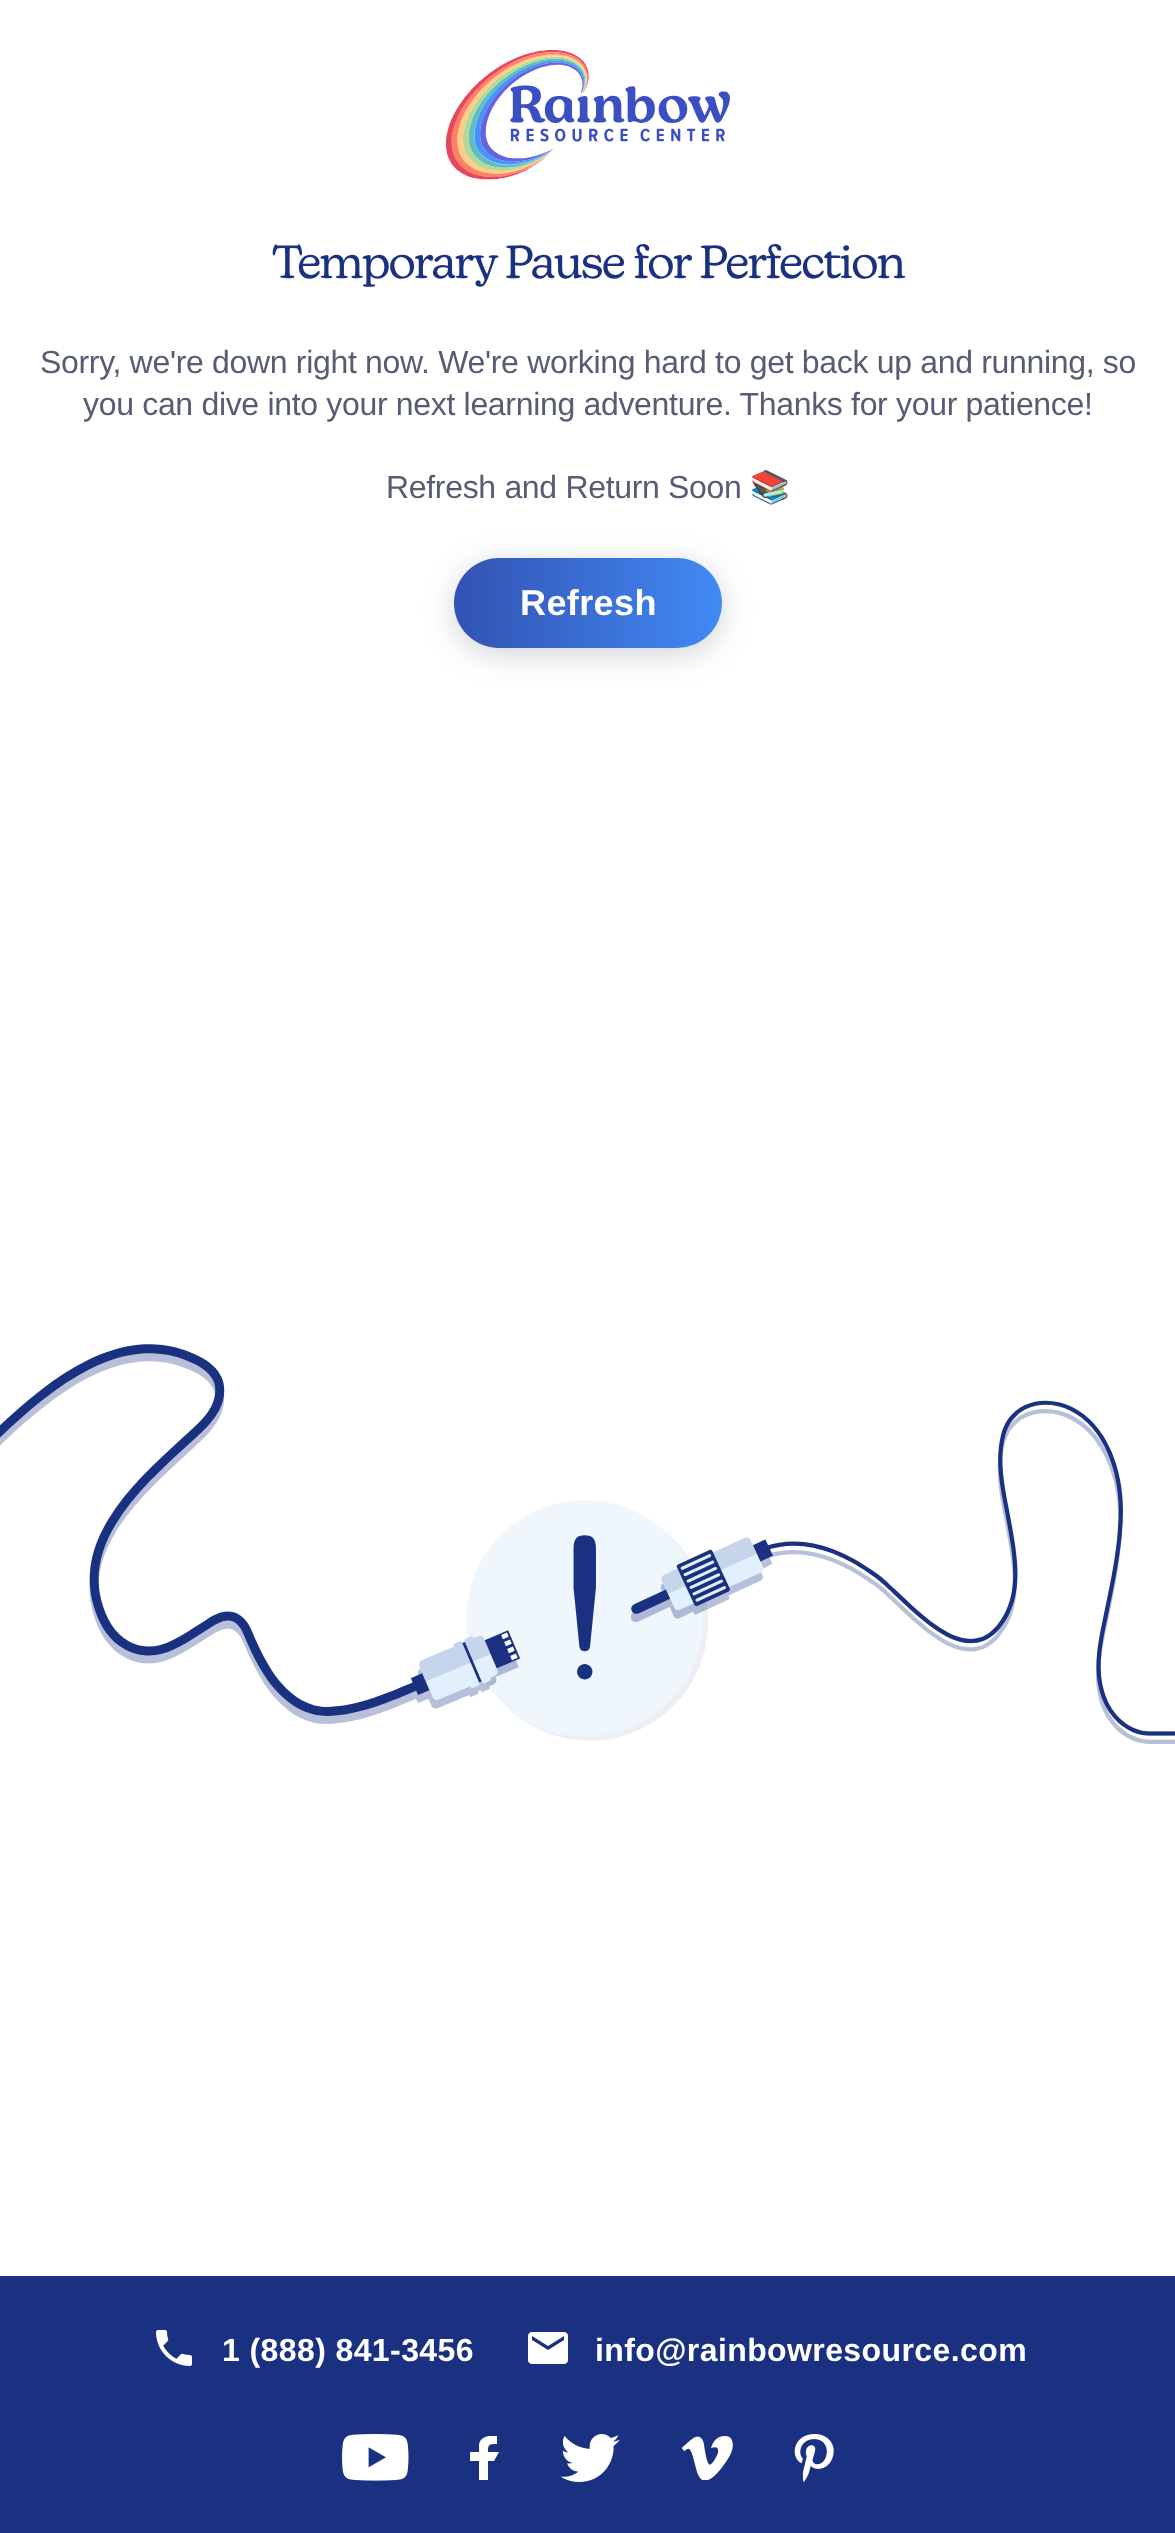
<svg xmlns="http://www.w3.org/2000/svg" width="1175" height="2533">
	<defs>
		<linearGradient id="g1" gradientUnits="userSpaceOnUse" x1="454" y1="603" x2="722" y2="603"><stop offset="0" stop-color="#3252B2" /><stop offset="1" stop-color="#428AF5" /></linearGradient>
		<clipPath id="clip1"><rect x="470" y="2436" width="30" height="44" /></clipPath>
	</defs>
	<rect width="100%" height="100%" fill="#FFFFFF" />
	<image x="0" y="1344" width="1175" height="400" href="assets/img1.png" />
	<image x="446" y="50" width="284" height="130" href="assets/img2.png" />
	<text x="272" y="278" font-family="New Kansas" font-size="46" letter-spacing="-1.4" fill="#1A3181">Temporary Pause for Perfection</text>
	<g font-family="Liberation Sans" font-size="32" letter-spacing="-0.32" fill="#565C73">
		<text x="40" y="373">Sorry, we're down right now. We're working hard to get back up and running, so</text>
		<text x="83" y="415">you can dive into your next learning adventure. Thanks for your patience!</text>
		<text x="386" y="498">Refresh and Return Soon</text>
	</g>
	<text x="750" y="498" font-family="Noto Color Emoji" font-size="32" letter-spacing="-0.32" fill="#565C73">📚</text>
	<rect x="454" y="564" width="268" height="90" rx="45" fill="#767A8C" fill-opacity="0.33" filter="blur(15px)" />
	<rect x="454" y="558" width="268" height="90" rx="45" fill="url(#g1)" />
	<text x="520" y="615" font-family="Liberation Sans" font-size="36" font-weight="700" letter-spacing="0.4" fill="#FFFFFF">Refresh</text>
	<rect x="0" y="2276" width="1175" height="257" fill="#1A3181" />
	<image x="156" y="2330" width="36" height="36" href="assets/img3.png" />
	<text x="222" y="2361" font-family="Liberation Sans" font-size="32" font-weight="700" letter-spacing="0.4" fill="#FFFFFF">1 (888) 841-3456</text>
	<image x="528" y="2332" width="40" height="32" href="assets/img4.png" />
	<text x="595" y="2361" font-family="Liberation Sans" font-size="32" font-weight="700" letter-spacing="0.4" fill="#FFFFFF">info@rainbowresource.com</text>
	<image x="342" y="2434" width="67" height="47" href="assets/img5.png" />
	<g clip-path="url(#clip1)">
		<path d="M479 2481V2461H470V2452H479V2445C480 2436 490 2435 497 2436V2444C489 2444 488 2444 488 2452H499L494 2461H488V2481Z" fill="#FFFFFF" fill-rule="evenodd" />
	</g>
	<image x="560" y="2434" width="60" height="48" href="assets/img6.png" />
	<image x="681" y="2436" width="52" height="44" href="assets/img7.png" />
	<image x="794" y="2434" width="40" height="48" href="assets/img8.png" />
</svg>
